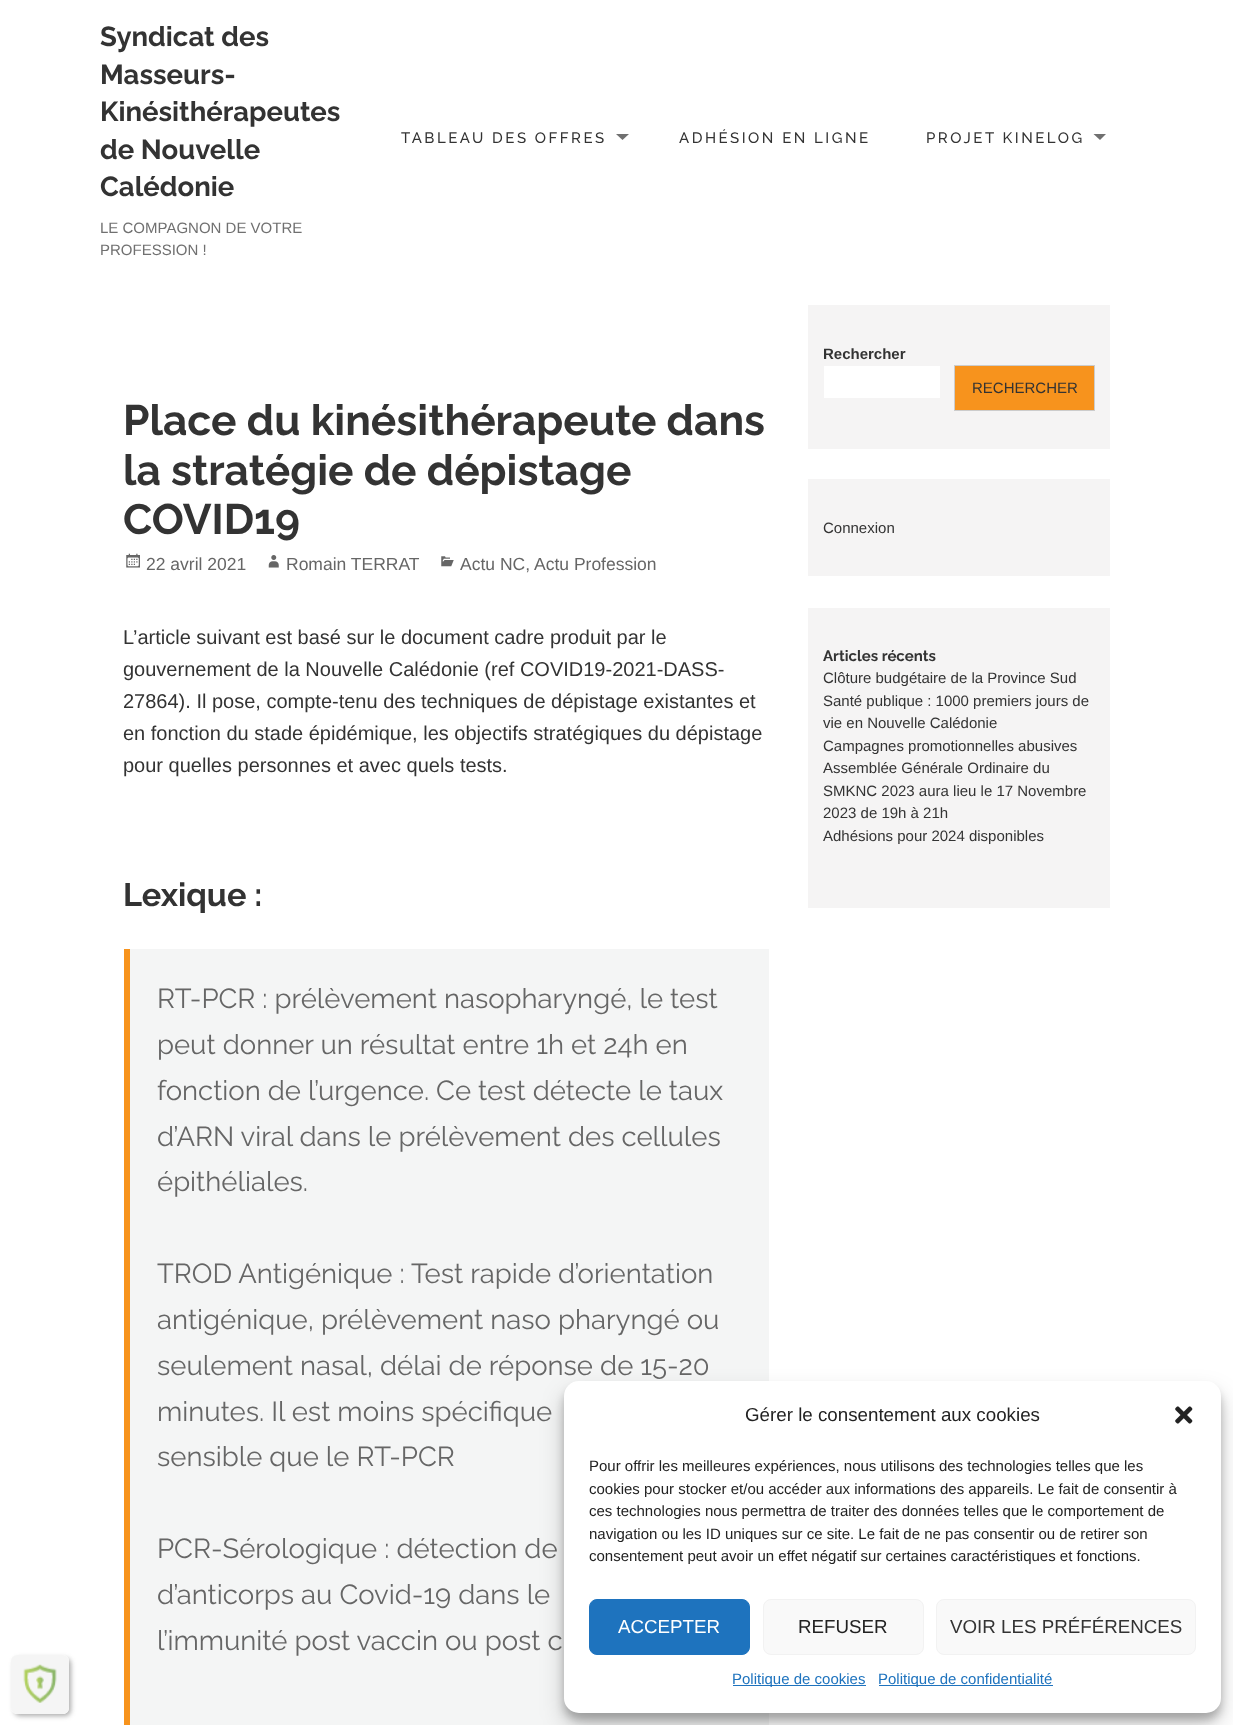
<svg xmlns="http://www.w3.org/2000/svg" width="1233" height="1725">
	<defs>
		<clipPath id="clip1"><path d="M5 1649H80V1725H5ZM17 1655H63C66.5 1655 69 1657.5 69 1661V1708C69 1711.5 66.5 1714 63 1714H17C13.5 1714 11 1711.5 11 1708V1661C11 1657.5 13.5 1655 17 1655Z" clip-rule="evenodd" /></clipPath>
	</defs>
	<rect width="100%" height="100%" fill="#FFFFFF" />
	<g font-family="Raleway" font-size="27.5" font-weight="700" fill="#333333">
		<text x="100" y="46">Syndicat des</text>
		<text x="100" y="84">Masseurs-</text>
		<text x="100" y="121">Kinésithérapeutes</text>
		<text x="100" y="159">de Nouvelle</text>
		<text x="100" y="196">Calédonie</text>
	</g>
	<text x="401" y="143" font-family="Raleway" font-size="15" font-weight="500" letter-spacing="2.5" fill="#333333">TABLEAU DES OFFRES</text>
	<path d="M616 134H629L622.5 140Z" fill="#707070" />
	<g font-family="Raleway" font-size="15" font-weight="500" letter-spacing="2.5" fill="#333333">
		<text x="679" y="143">ADHÉSION EN LIGNE</text>
		<text x="926" y="143">PROJET KINELOG</text>
	</g>
	<path d="M1093.5 134H1106L1100 140Z" fill="#707070" />
	<g font-family="Liberation Sans" font-size="15" fill="#707070">
		<text x="100" y="233">LE COMPAGNON DE VOTRE</text>
		<text x="100" y="255">PROFESSION !</text>
	</g>
	<g font-family="Raleway" font-size="42.5" font-weight="700" fill="#333333">
		<text x="123" y="435">Place du kinésithérapeute dans</text>
		<text x="123" y="485">la stratégie de dépistage</text>
		<text x="123" y="534">COVID19</text>
	</g>
	<image x="126" y="553" width="14" height="15" href="assets/img1.png" />
	<text x="146" y="570" font-family="Liberation Sans" font-size="17.5" fill="#666666">22 avril 2021</text>
	<image x="268" y="555" width="11" height="13" href="assets/img2.png" />
	<text x="286" y="570" font-family="Liberation Sans" font-size="17.5" fill="#666666">Romain TERRAT</text>
	<image x="441" y="556" width="13" height="11" href="assets/img3.png" />
	<g font-family="Liberation Sans" font-size="17.5" fill="#666666">
		<text x="460" y="570">Actu NC,</text>
		<text x="534" y="570">Actu Profession</text>
	</g>
	<g font-family="Liberation Sans" font-size="20" fill="#333333">
		<text x="123" y="644">L’article suivant est basé sur le document cadre produit par le</text>
		<text x="123" y="676">gouvernement de la Nouvelle Calédonie (ref COVID19-2021-DASS-</text>
		<text x="123" y="708">27864). Il pose, compte-tenu des techniques de dépistage existantes et</text>
		<text x="123" y="740">en fonction du stade épidémique, les objectifs stratégiques du dépistage</text>
		<text x="123" y="772">pour quelles personnes et avec quels tests.</text>
	</g>
	<text x="123" y="906" font-family="Raleway" font-size="32.5" font-weight="700" fill="#333333">Lexique :</text>
	<rect x="130" y="949" width="639" height="776" fill="#F4F5F5" />
	<rect x="124" y="949" width="6" height="776" fill="#F7931D" />
	<g font-family="Raleway" font-size="27.5" fill="#666666">
		<text x="157" y="1008">RT-PCR : prélèvement nasopharyngé, le test</text>
		<text x="157" y="1054">peut donner un résultat entre 1h et 24h en</text>
		<text x="157" y="1100">fonction de l’urgence. Ce test détecte le taux</text>
		<text x="157" y="1146">d’ARN viral dans le prélèvement des cellules</text>
		<text x="157" y="1191">épithéliales.</text>
		<text x="157" y="1283">TROD Antigénique : Test rapide d’orientation</text>
		<text x="157" y="1329">antigénique, prélèvement naso pharyngé ou</text>
		<text x="157" y="1375">seulement nasal, délai de réponse de 15-20</text>
		<text x="157" y="1421">minutes. Il est moins spécifique</text>
		<text x="157" y="1466">sensible que le RT-PCR</text>
		<text x="157" y="1558">PCR-Sérologique : détection de</text>
		<text x="157" y="1604">d’anticorps au Covid-19 dans le</text>
		<text x="157" y="1650">l’immunité post vaccin ou post c</text>
	</g>
	<rect x="808" y="305" width="302" height="144" fill="#F5F4F4" />
	<text x="823" y="359" font-family="Liberation Sans" font-size="15" font-weight="700" fill="#333333">Rechercher</text>
	<rect x="824" y="366" width="116" height="32" fill="#FFFFFF" />
	<rect x="954.5" y="365.5" width="140" height="45" fill="#F7931D" stroke="#CCCCCC" />
	<text x="972" y="393" font-family="Liberation Sans" font-size="15" fill="#333333">RECHERCHER</text>
	<rect x="808" y="479" width="302" height="97" fill="#F5F4F4" />
	<text x="823" y="533" font-family="Liberation Sans" font-size="15" fill="#333333">Connexion</text>
	<rect x="808" y="608" width="302" height="300" fill="#F5F4F4" />
	<text x="823" y="661" font-family="Raleway" font-size="15" font-weight="700" fill="#333333">Articles récents</text>
	<g font-family="Liberation Sans" font-size="15" fill="#333333">
		<text x="823" y="683">Clôture budgétaire de la Province Sud</text>
		<text x="823" y="706">Santé publique : 1000 premiers jours de</text>
		<text x="823" y="728">vie en Nouvelle Calédonie</text>
		<text x="823" y="751">Campagnes promotionnelles abusives</text>
		<text x="823" y="773">Assemblée Générale Ordinaire du</text>
		<text x="823" y="796">SMKNC 2023 aura lieu le 17 Novembre</text>
		<text x="823" y="818">2023 de 19h à 21h</text>
		<text x="823" y="841">Adhésions pour 2024 disponibles</text>
	</g>
	<g clip-path="url(#clip1)">
		<rect x="14" y="1658" width="57" height="58" rx="6" fill="#4D4D4D" fill-opacity="0.47" filter="blur(2.5px)" />
	</g>
	<rect x="11" y="1655" width="58" height="59" rx="6" fill="#F5F5F5" fill-opacity="0.99" />
	<image x="23" y="1664" width="34" height="39" href="assets/img4.png" />
	<rect x="564" y="1389" width="657" height="331" rx="15" fill="#000000" fill-opacity="0.23" filter="blur(4px)" />
	<rect x="564" y="1394" width="657" height="331" rx="15" fill="#000000" fill-opacity="0.19" filter="blur(12.5px)" />
	<rect x="564" y="1381" width="657" height="332" rx="15" fill="#FFFFFF" />
	<text x="745" y="1421" font-family="Liberation Sans" font-size="18.75" fill="#222222">Gérer le consentement aux cookies</text>
	<image x="1175" y="1406" width="18" height="18" href="assets/img5.png" />
	<g font-family="Liberation Sans" font-size="15" fill="#222222">
		<text x="589" y="1471">Pour offrir les meilleures expériences, nous utilisons des technologies telles que les</text>
		<text x="589" y="1494">cookies pour stocker et/ou accéder aux informations des appareils. Le fait de consentir à</text>
		<text x="589" y="1516">ces technologies nous permettra de traiter des données telles que le comportement de</text>
		<text x="589" y="1539">navigation ou les ID uniques sur ce site. Le fait de ne pas consentir ou de retirer son</text>
		<text x="589" y="1561">consentement peut avoir un effet négatif sur certaines caractéristiques et fonctions.</text>
	</g>
	<rect x="589.5" y="1599.5" width="160" height="55" rx="7.5" fill="#1E73BE" stroke="#1E73BE" />
	<text x="618" y="1633" font-family="Liberation Sans" font-size="18.75" fill="#FFFFFF">ACCEPTER</text>
	<rect x="763.5" y="1599.5" width="160" height="55" rx="7.5" fill="#F9F9F9" stroke="#F2F2F2" />
	<text x="798" y="1633" font-family="Liberation Sans" font-size="18.75" fill="#222222">REFUSER</text>
	<rect x="936.5" y="1599.5" width="259" height="55" rx="7.5" fill="#F9F9F9" stroke="#F2F2F2" />
	<text x="950" y="1633" font-family="Liberation Sans" font-size="18.75" fill="#333333">VOIR LES PRÉFÉRENCES</text>
	<rect x="733" y="1685" width="133" height="1" fill="#1E73BE" />
	<text x="732" y="1684" font-family="Liberation Sans" font-size="15" fill="#1E73BE">Politique de cookies</text>
	<rect x="879" y="1685" width="174" height="1" fill="#1E73BE" />
	<text x="878" y="1684" font-family="Liberation Sans" font-size="15" fill="#1E73BE">Politique de confidentialité</text>
</svg>
